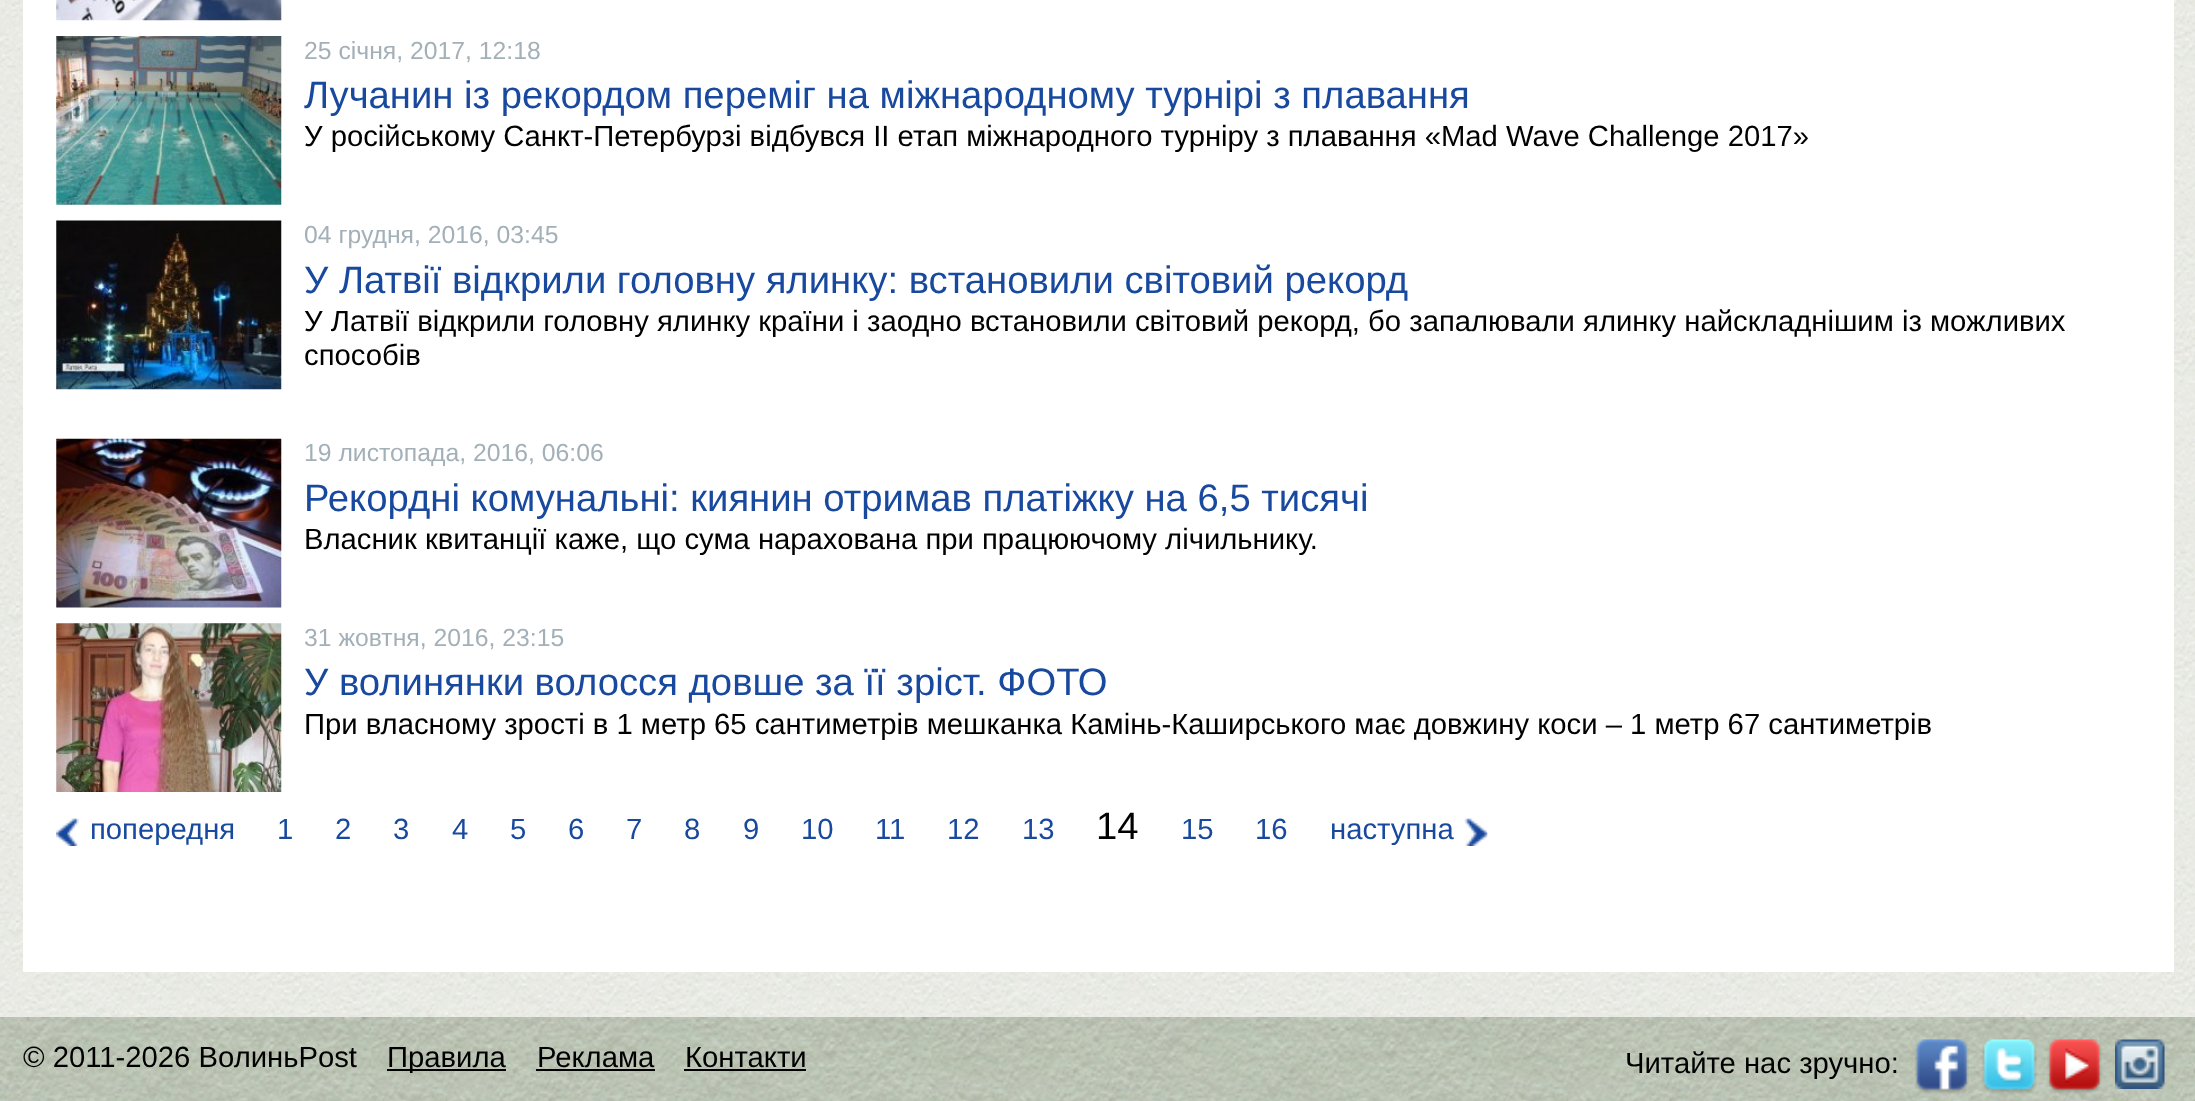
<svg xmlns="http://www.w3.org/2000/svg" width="2195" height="1101">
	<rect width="100%" height="100%" fill="#FFFFFF" />
	<image x="0" y="0" width="2195" height="1017" href="assets/img1.png" />
	<rect x="23" y="0" width="2151" height="972" fill="#FFFFFF" />
	<image x="56" y="0" width="226" height="21" href="assets/img2.png" />
	<image x="56" y="36" width="226" height="169" href="assets/img3.png" />
	<text x="304" y="59" font-family="Liberation Sans" font-size="24.75" fill="#A3B0B8">25 січня, 2017, 12:18</text>
	<text x="304" y="108" font-family="Liberation Sans" font-size="38.25" fill="#18499E">Лучанин із рекордом переміг на міжнародному турнірі з плавання</text>
	<text x="304" y="146" font-family="Liberation Sans" font-size="29.25" fill="#000000">У російському Санкт-Петербурзі відбувся ІІ етап міжнародного турніру з плавання «Mad Wave Challenge 2017»</text>
	<image x="56" y="220" width="226" height="170" href="assets/img4.png" />
	<text x="304" y="243" font-family="Liberation Sans" font-size="24.75" fill="#A3B0B8">04 грудня, 2016, 03:45</text>
	<text x="304" y="293" font-family="Liberation Sans" font-size="38.25" fill="#18499E">У Латвії відкрили головну ялинку: встановили світовий рекорд</text>
	<g font-family="Liberation Sans" font-size="29.25" fill="#000000">
		<text x="304" y="331">У Латвії відкрили головну ялинку країни і заодно встановили світовий рекорд, бо запалювали ялинку найскладнішим із можливих</text>
		<text x="304" y="365">способів</text>
	</g>
	<image x="56" y="438" width="226" height="170" href="assets/img5.png" />
	<text x="304" y="461" font-family="Liberation Sans" font-size="24.75" fill="#A3B0B8">19 листопада, 2016, 06:06</text>
	<text x="304" y="511" font-family="Liberation Sans" font-size="38.25" fill="#18499E">Рекордні комунальні: киянин отримав платіжку на 6,5 тисячі</text>
	<text x="304" y="549" font-family="Liberation Sans" font-size="29.25" fill="#000000">Власник квитанції каже, що сума нарахована при працюючому лічильнику.</text>
	<image x="56" y="623" width="226" height="169" href="assets/img6.png" />
	<text x="304" y="646" font-family="Liberation Sans" font-size="24.75" fill="#A3B0B8">31 жовтня, 2016, 23:15</text>
	<text x="304" y="695" font-family="Liberation Sans" font-size="38.25" fill="#18499E">У волинянки волосся довше за її зріст. ФОТО</text>
	<text x="304" y="734" font-family="Liberation Sans" font-size="29.25" fill="#000000">При власному зрості в 1 метр 65 сантиметрів мешканка Камінь-Каширського має довжину коси – 1 метр 67 сантиметрів</text>
	<image x="56" y="818" width="23" height="28" href="assets/img7.png" />
	<g font-family="Liberation Sans" font-size="29.25" fill="#18499E">
		<text x="90" y="839">попередня</text>
		<text x="277" y="839">1</text>
		<text x="335" y="839">2</text>
		<text x="393" y="839">3</text>
		<text x="452" y="839">4</text>
		<text x="510" y="839">5</text>
		<text x="568" y="839">6</text>
		<text x="626" y="839">7</text>
		<text x="684" y="839">8</text>
		<text x="743" y="839">9</text>
		<text x="801" y="839">10</text>
		<text x="875" y="839">11</text>
		<text x="947" y="839">12</text>
		<text x="1022" y="839">13</text>
	</g>
	<text x="1096" y="839" font-family="Liberation Sans" font-size="38.25" fill="#000000">14</text>
	<g font-family="Liberation Sans" font-size="29.25" fill="#18499E">
		<text x="1181" y="839">15</text>
		<text x="1255" y="839">16</text>
		<text x="1330" y="839">наступна</text>
	</g>
	<image x="1464" y="818" width="24" height="28" href="assets/img8.png" />
	<image x="0" y="1017" width="2195" height="84" href="assets/img9.png" />
	<text x="23" y="1067" font-family="Liberation Sans" font-size="29.25" fill="#000000">© 2011-2026 ВолиньPost</text>
	<rect x="387" y="1069" width="119" height="2" fill="#000000" />
	<g font-family="Liberation Sans" font-size="29.25" fill="#000000">
		<text x="387" y="1067">Правила</text>
		<text x="537" y="1067">Реклама</text>
	</g>
	<rect x="536" y="1069" width="119" height="2" fill="#000000" />
	<text x="685" y="1067" font-family="Liberation Sans" font-size="29.25" fill="#000000">Контакти</text>
	<rect x="684" y="1069" width="122" height="2" fill="#000000" />
	<text x="1625" y="1073" font-family="Liberation Sans" font-size="29.25" fill="#000000">Читайте нас зручно:</text>
	<image x="1915" y="1039" width="54" height="55" href="assets/img10.png" />
	<image x="1982" y="1039" width="55" height="55" href="assets/img11.png" />
	<image x="2047" y="1039" width="55" height="55" href="assets/img12.png" />
	<image x="2115" y="1039" width="50" height="50" href="assets/img13.png" />
</svg>
